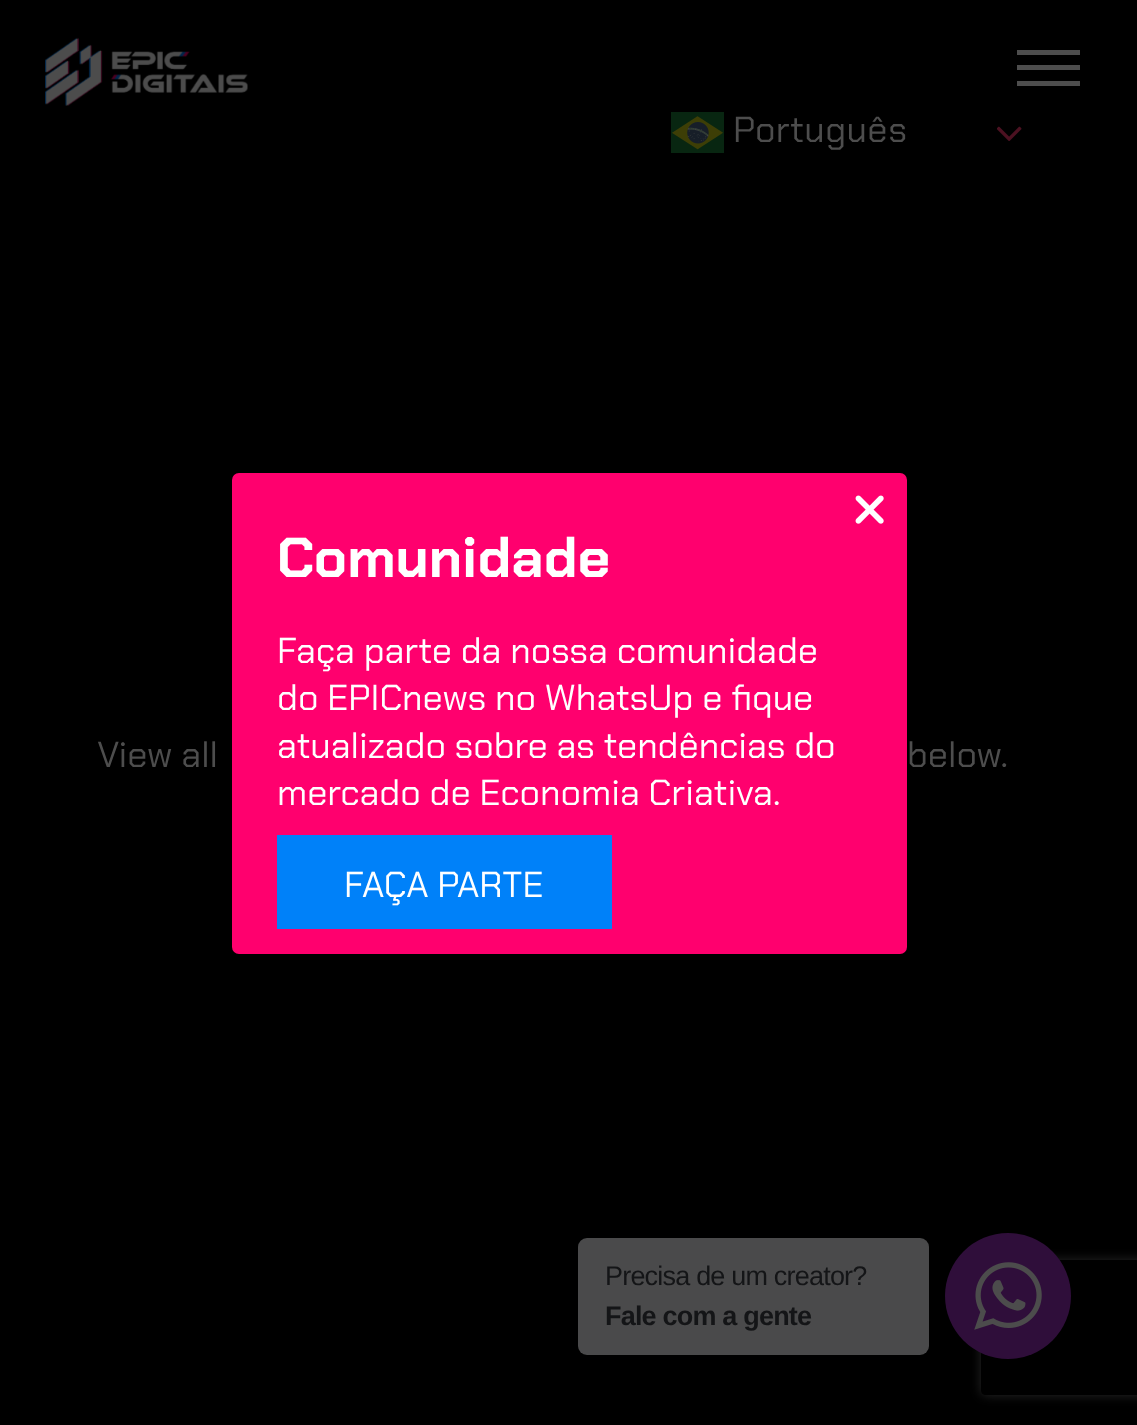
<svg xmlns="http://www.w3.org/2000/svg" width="1137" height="1425">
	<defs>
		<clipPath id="clip1"><path d="M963 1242H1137V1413H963ZM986 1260H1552C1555 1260 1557 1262 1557 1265V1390C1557 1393 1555 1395 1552 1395H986C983 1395 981 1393 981 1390V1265C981 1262 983 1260 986 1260Z" clip-rule="evenodd" /></clipPath>
	</defs>
	<rect width="100%" height="100%" fill="#000000" />
	<image x="45" y="37" width="203" height="69" href="assets/img1.png" />
	<rect x="1017" y="65" width="63" height="5" fill="#4D4D4D" />
	<rect x="1017" y="50" width="63" height="5" fill="#4D4D4D" />
	<rect x="1017" y="81" width="63" height="5" fill="#4D4D4D" />
	<image x="671" y="112" width="53" height="41" href="assets/img2.png" />
	<text x="733" y="142" font-family="Chakra Petch" font-size="36" letter-spacing="0.4" fill="#4D4D4D">Português</text>
	<image x="997" y="126" width="25" height="15" href="assets/img3.png" />
	<rect x="232" y="473" width="675" height="481" rx="7" fill="#FF006E" />
	<image x="855" y="495" width="29" height="29" href="assets/img4.png" />
	<text x="277" y="577" font-family="Chakra Petch" font-size="56.25" font-weight="700" fill="#FFFFFF">Comunidade</text>
	<g font-family="Chakra Petch" font-size="36" fill="#FFFFFF">
		<text x="277" y="663">Faça parte da nossa comunidade</text>
		<text x="277" y="710">do EPICnews no WhatsUp e fique</text>
		<text x="277" y="758">atualizado sobre as tendências do</text>
		<text x="277" y="805">mercado de Economia Criativa.</text>
	</g>
	<rect x="277" y="835" width="335" height="94" fill="#0081F9" />
	<text x="344" y="897" font-family="Chakra Petch" font-size="36" fill="#FFFFFF">FAÇA PARTE</text>
	<g font-family="Chakra Petch" font-size="36" fill="#4D4D4D">
		<text x="97" y="767">View all</text>
		<text x="907" y="767">below.</text>
	</g>
	<rect x="578" y="1238" width="351" height="117" rx="9" fill="#4A4A4B" />
	<text x="605" y="1285" font-family="Liberation Sans" font-size="27" letter-spacing="-0.8" fill="#141517">Precisa de um creator?</text>
	<text x="605" y="1325" font-family="Liberation Sans" font-size="27" font-weight="700" letter-spacing="-0.8" fill="#141517">Fale com a gente</text>
	<g clip-path="url(#clip1)">
		<rect x="981" y="1260" width="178" height="135" rx="5" fill="#262626" filter="blur(5.5px)" />
	</g>
	<circle cx="1008" cy="1296" r="63" fill="#2F0E3A" />
	<image x="974" y="1262" width="68" height="68" href="assets/img5.png" />
</svg>
